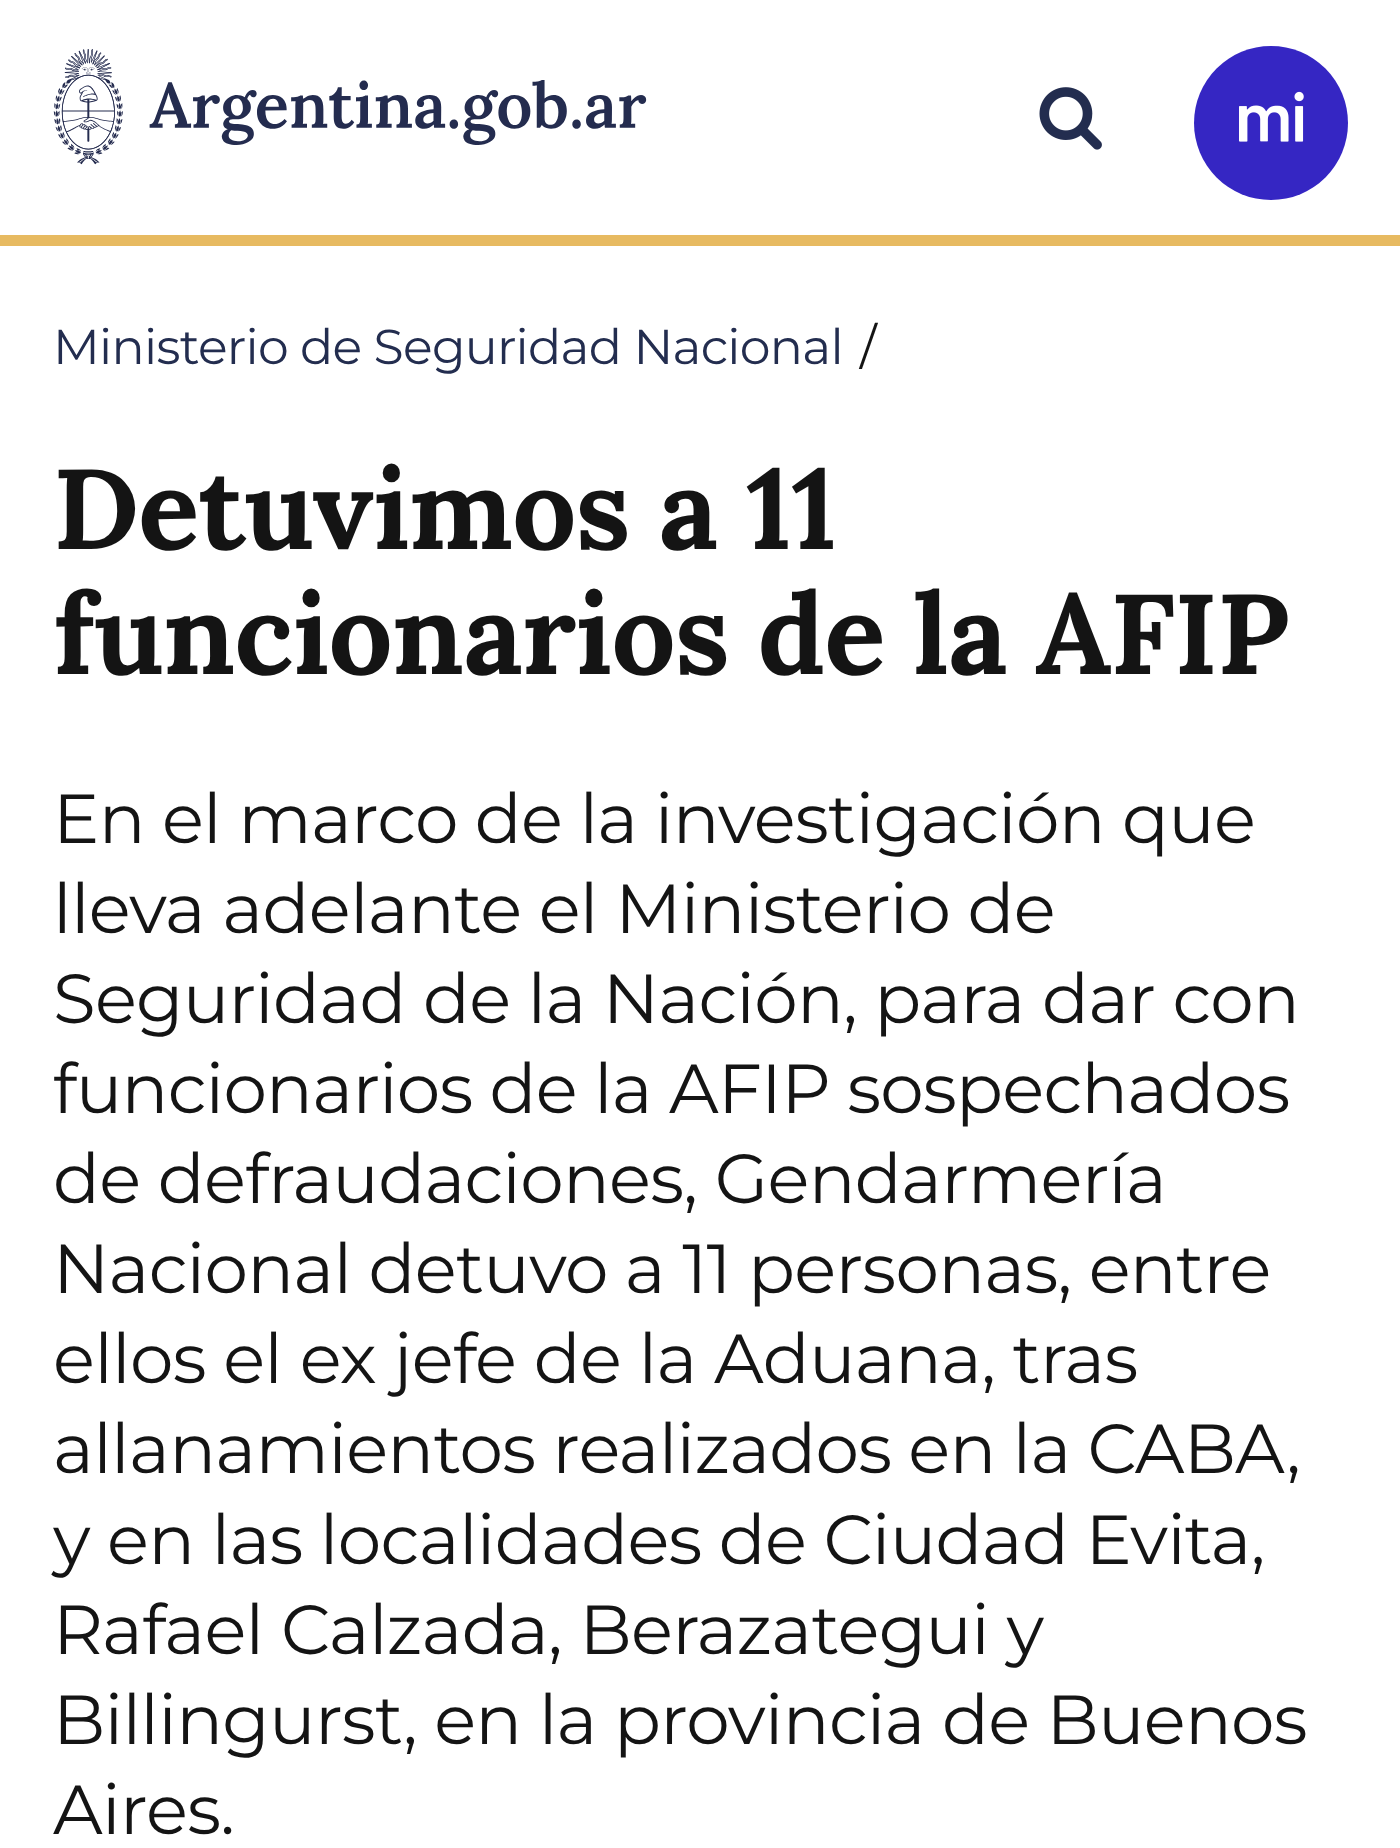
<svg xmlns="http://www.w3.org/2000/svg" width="1400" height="1848">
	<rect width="100%" height="100%" fill="#FFFFFF" />
	<rect x="0" y="235" width="1400" height="11" fill="#E7BA61" />
	<image x="53" y="49" width="594" height="116" href="assets/img1.png" />
	<image x="1039" y="87" width="63" height="63" href="assets/img2.png" />
	<circle cx="1271" cy="123" r="77" fill="#3526C3" />
	<image x="1239" y="91" width="65" height="51" href="assets/img3.png" />
	<text x="53" y="364" font-family="Montserrat" font-size="49" letter-spacing="-0.7" fill="#232D4F">Ministerio de Seguridad Nacional</text>
	<text x="860" y="364" font-family="Montserrat" font-size="49" letter-spacing="-0.7" fill="#141414">/</text>
	<g font-family="Lora" font-size="113.4" font-weight="700" letter-spacing="-0.9" fill="#141414">
		<text x="53" y="549">Detuvimos a 11</text>
		<text x="53" y="674">funcionarios de la AFIP</text>
	</g>
	<g font-family="Montserrat" font-size="69.25" letter-spacing="-0.7" fill="#141414">
		<text x="53" y="843" word-spacing="-0.25">En el marco de la investigación que</text>
		<text x="53" y="933">lleva adelante el Ministerio de</text>
		<text x="53" y="1023" word-spacing="-0.25">Seguridad de la Nación, para dar con</text>
		<text x="53" y="1113" word-spacing="-0.5">funcionarios de la AFIP sospechados</text>
		<text x="53" y="1203">de defraudaciones, Gendarmería</text>
		<text x="53" y="1293" word-spacing="-0.25">Nacional detuvo a 11 personas, entre</text>
		<text x="53" y="1383">ellos el ex jefe de la Aduana, tras</text>
		<text x="53" y="1473" word-spacing="-0.5">allanamientos realizados en la CABA,</text>
		<text x="53" y="1564" word-spacing="-0.25">y en las localidades de Ciudad Evita,</text>
		<text x="53" y="1654">Rafael Calzada, Berazategui y</text>
		<text x="53" y="1744" word-spacing="-0.25">Billingurst, en la provincia de Buenos</text>
		<text x="53" y="1834">Aires.</text>
	</g>
</svg>
